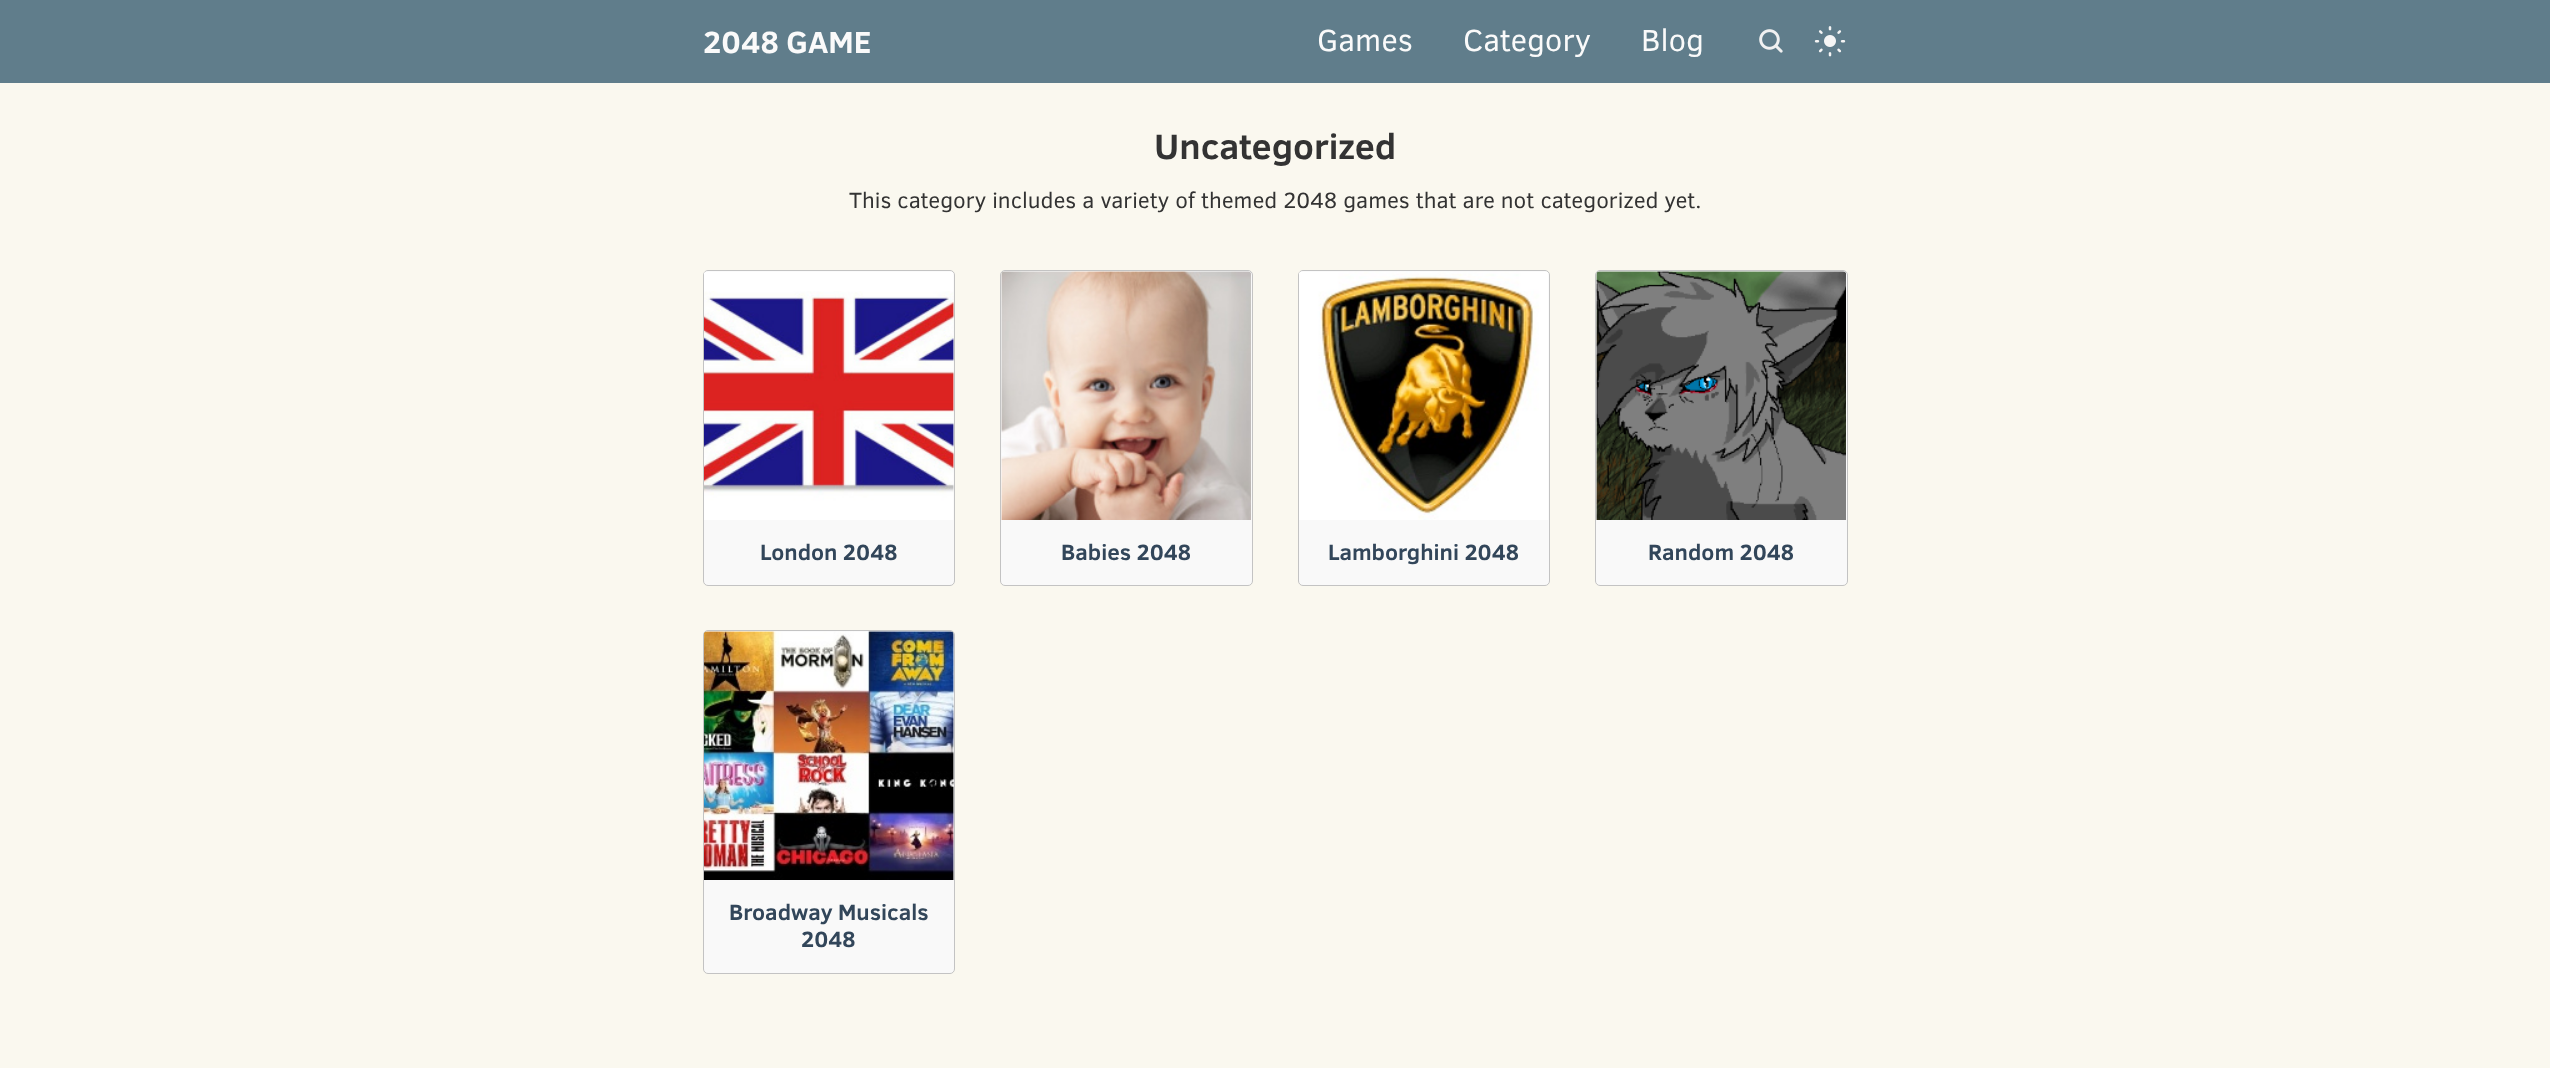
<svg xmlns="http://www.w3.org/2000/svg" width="2550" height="1068">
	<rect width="100%" height="100%" fill="#FAF8EF" />
	<rect x="0" y="0" width="2550" height="83" fill="#607D8B" />
	<text x="703" y="53" font-family="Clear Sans" font-size="31.25" font-weight="700" fill="#FAFAFA">2048 GAME</text>
	<g font-family="Clear Sans" font-size="31.25" fill="#FAFAFA">
		<text x="1317" y="51">Games</text>
		<text x="1463" y="51">Category</text>
		<text x="1641" y="51">Blog</text>
	</g>
	<image x="1759" y="29" width="24" height="24" href="assets/img1.png" />
	<image x="1814" y="26" width="32" height="31" href="assets/img2.png" />
	<text x="1154" y="159" font-family="Clear Sans" font-size="36" font-weight="700" fill="#333333">Uncategorized</text>
	<text x="849" y="208" font-family="Clear Sans" font-size="22.5" fill="#333333">This category includes a variety of themed 2048 games that are not categorized yet.</text>
	<rect x="703.5" y="270.5" width="251" height="315" rx="4.5" fill="#F9F9F9" stroke="#C3C3C3" />
	<image x="704" y="271" width="250" height="249" href="assets/img3.png" />
	<text x="760" y="560" font-family="Clear Sans" font-size="22.5" font-weight="700" fill="#32465A">London 2048</text>
	<rect x="1000.5" y="270.5" width="252" height="315" rx="4.5" fill="#F9F9F9" stroke="#C3C3C3" />
	<image x="1001" y="271" width="250" height="249" href="assets/img4.png" />
	<text x="1061" y="560" font-family="Clear Sans" font-size="22.5" font-weight="700" fill="#32465A">Babies 2048</text>
	<rect x="1298.5" y="270.5" width="251" height="315" rx="4.5" fill="#F9F9F9" stroke="#C3C3C3" />
	<image x="1299" y="271" width="250" height="249" href="assets/img5.png" />
	<text x="1328" y="560" font-family="Clear Sans" font-size="22.5" font-weight="700" fill="#32465A">Lamborghini 2048</text>
	<rect x="1595.5" y="270.5" width="252" height="315" rx="4.5" fill="#F9F9F9" stroke="#C3C3C3" />
	<image x="1596" y="271" width="250" height="249" href="assets/img6.png" />
	<text x="1648" y="560" font-family="Clear Sans" font-size="22.5" font-weight="700" fill="#32465A">Random 2048</text>
	<rect x="703.5" y="630.5" width="251" height="343" rx="4.5" fill="#F9F9F9" stroke="#C3C3C3" />
	<image x="704" y="631" width="250" height="249" href="assets/img7.png" />
	<g font-family="Clear Sans" font-size="22.5" font-weight="700" fill="#32465A">
		<text x="729" y="920">Broadway Musicals</text>
		<text x="801" y="947">2048</text>
	</g>
</svg>
